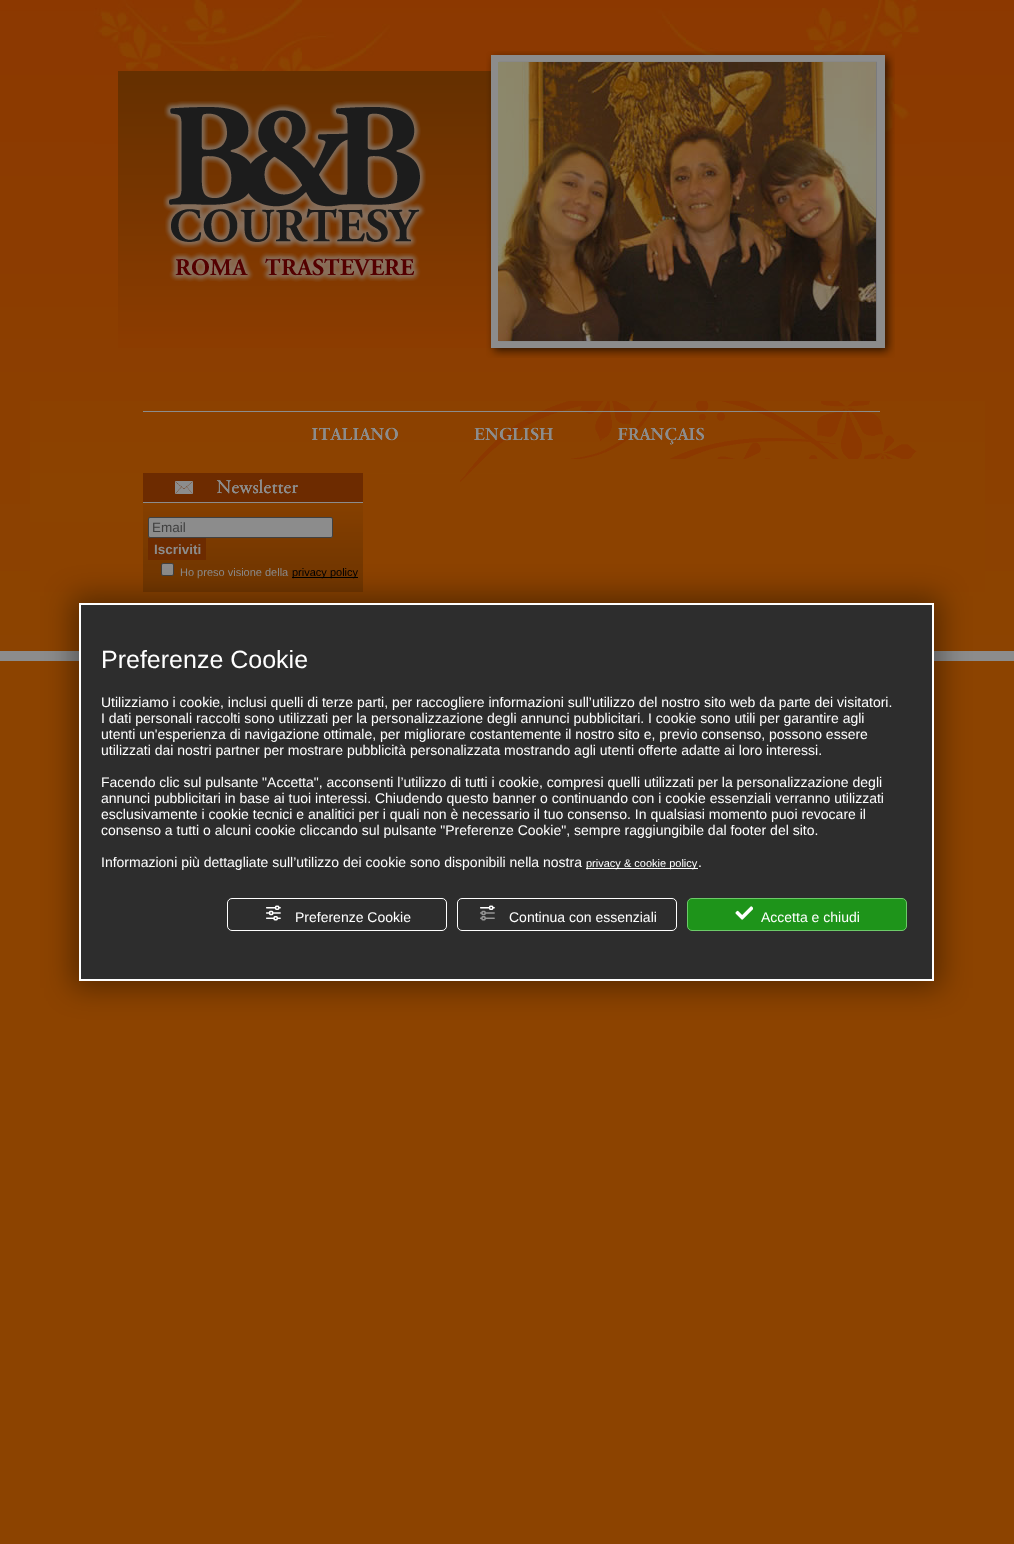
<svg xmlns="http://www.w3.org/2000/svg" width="1014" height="1544">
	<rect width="100%" height="100%" fill="#8C4300" />
	<image x="0" y="0" width="1014" height="661" href="assets/img1.png" />
	<image x="94" y="0" width="826" height="192" href="assets/img2.png" />
	<image x="118" y="51" width="777" height="307" href="assets/img3.png" />
	<image x="498" y="62" width="378" height="279" href="assets/img4.png" />
	<image x="30" y="401" width="955" height="191" href="assets/img5.png" />
	<rect x="148.5" y="517.5" width="184" height="20" rx="1.5" fill="#8C8C8C" stroke="#414141" />
	<text x="152" y="532" font-family="Liberation Sans" font-size="13.5" fill="#404040">Email</text>
	<rect x="148" y="538" width="58" height="22" fill="#6D2B00" />
	<text x="154" y="554" font-family="Liberation Sans" font-size="13.5" font-weight="700" fill="#8C8C8C">Iscriviti</text>
	<rect x="161.5" y="563.5" width="12" height="12" rx="1.5" fill="#8C8C8C" stroke="#414141" />
	<text x="180" y="576" font-family="Liberation Sans" font-size="11" fill="#8C8C8C">Ho preso visione della</text>
	<rect x="292" y="577" width="66" height="1" fill="#000000" />
	<text x="292" y="576" font-family="Liberation Sans" font-size="11" fill="#000000">privacy policy</text>
	<rect x="72" y="596" width="869" height="392" fill="#000000" fill-opacity="0.38" filter="blur(14.5px)" />
	<rect x="80" y="604" width="853" height="376" fill="#2D2D2D" stroke="#FFFFFF" stroke-width="2" />
	<text x="101" y="668" font-family="Liberation Sans" font-size="25" fill="#FFFFFF">Preferenze Cookie</text>
	<g font-family="Liberation Sans" font-size="14" fill="#FFFFFF">
		<text x="101" y="707">Utilizziamo i cookie, inclusi quelli di terze parti, per raccogliere informazioni sull’utilizzo del nostro sito web da parte dei visitatori.</text>
		<text x="101" y="723">I dati personali raccolti sono utilizzati per la personalizzazione degli annunci pubblicitari. I cookie sono utili per garantire agli</text>
		<text x="101" y="739">utenti un'esperienza di navigazione ottimale, per migliorare costantemente il nostro sito e, previo consenso, possono essere</text>
		<text x="101" y="755">utilizzati dai nostri partner per mostrare pubblicità personalizzata mostrando agli utenti offerte adatte ai loro interessi.</text>
		<text x="101" y="787">Facendo clic sul pulsante "Accetta", acconsenti l’utilizzo di tutti i cookie, compresi quelli utilizzati per la personalizzazione degli</text>
		<text x="101" y="803">annunci pubblicitari in base ai tuoi interessi. Chiudendo questo banner o continuando con i cookie essenziali verranno utilizzati</text>
		<text x="101" y="819">esclusivamente i cookie tecnici e analitici per i quali non è necessario il tuo consenso. In qualsiasi momento puoi revocare il</text>
		<text x="101" y="835">consenso a tutti o alcuni cookie cliccando sul pulsante "Preferenze Cookie", sempre raggiungibile dal footer del sito.</text>
		<text x="101" y="867">Informazioni più dettagliate sull’utilizzo dei cookie sono disponibili nella nostra</text>
	</g>
	<rect x="586" y="868" width="112" height="1" fill="#FFFFFF" />
	<text x="586" y="867" font-family="Liberation Sans" font-size="11" fill="#FFFFFF">privacy &amp; cookie policy</text>
	<text x="698" y="867" font-family="Liberation Sans" font-size="14" fill="#FFFFFF">.</text>
	<rect x="227.5" y="898.5" width="219" height="32" rx="4.5" fill="none" stroke="#FFFFFF" />
	<image x="266" y="905" width="15" height="16" href="assets/img6.png" />
	<text x="295" y="922" font-family="Liberation Sans" font-size="14" fill="#FFFFFF">Preferenze Cookie</text>
	<rect x="457.5" y="898.5" width="219" height="32" rx="4.5" fill="none" stroke="#FFFFFF" />
	<image x="480" y="905" width="15" height="16" href="assets/img7.png" />
	<text x="509" y="922" font-family="Liberation Sans" font-size="14" fill="#FFFFFF">Continua con essenziali</text>
	<rect x="687.5" y="898.5" width="219" height="32" rx="4.5" fill="#1E941A" stroke="#6CCA69" />
	<image x="735" y="906" width="18" height="14" href="assets/img8.png" />
	<text x="761" y="922" font-family="Liberation Sans" font-size="14" fill="#FFFFFF">Accetta e chiudi</text>
</svg>
